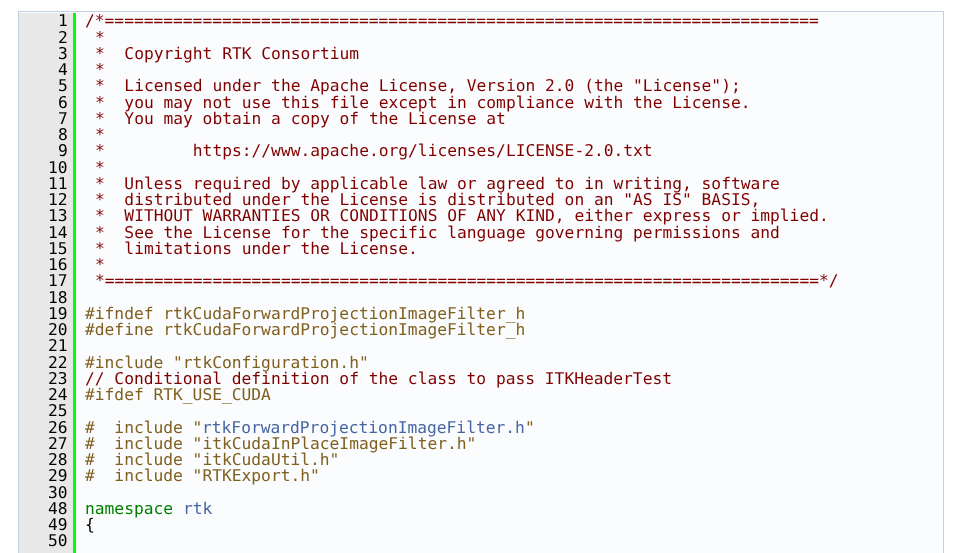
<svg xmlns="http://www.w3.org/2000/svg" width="963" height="553">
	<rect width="100%" height="100%" fill="#FFFFFF" />
	<rect x="18.5" y="11.5" width="925" height="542" fill="#FBFCFD" stroke="#C4CFE5" />
	<rect x="19" y="13" width="54" height="535" fill="#E8E8E8" />
	<text x="58" y="26" font-family="DejaVu Sans Mono" font-size="16.25" fill="#000000">1</text>
	<rect x="73" y="13" width="3" height="537" fill="#00FF00" />
	<text x="85" y="26" font-family="DejaVu Sans Mono" font-size="16.25" fill="#800000">/*=========================================================================</text>
	<text x="58" y="43" font-family="DejaVu Sans Mono" font-size="16.25" fill="#000000">2</text>
	<text x="95" y="43" font-family="DejaVu Sans Mono" font-size="16.25" fill="#800000">*</text>
	<text x="58" y="59" font-family="DejaVu Sans Mono" font-size="16.25" fill="#000000">3</text>
	<text x="95" y="59" font-family="DejaVu Sans Mono" font-size="16.25" fill="#800000" xml:space="preserve">*  Copyright RTK Consortium</text>
	<text x="58" y="75" font-family="DejaVu Sans Mono" font-size="16.25" fill="#000000">4</text>
	<text x="95" y="75" font-family="DejaVu Sans Mono" font-size="16.25" fill="#800000">*</text>
	<text x="58" y="91" font-family="DejaVu Sans Mono" font-size="16.25" fill="#000000">5</text>
	<text x="95" y="91" font-family="DejaVu Sans Mono" font-size="16.25" fill="#800000" xml:space="preserve">*  Licensed under the Apache License, Version 2.0 (the "License");</text>
	<text x="58" y="108" font-family="DejaVu Sans Mono" font-size="16.25" fill="#000000">6</text>
	<text x="95" y="108" font-family="DejaVu Sans Mono" font-size="16.25" fill="#800000" xml:space="preserve">*  you may not use this file except in compliance with the License.</text>
	<text x="58" y="124" font-family="DejaVu Sans Mono" font-size="16.25" fill="#000000">7</text>
	<text x="95" y="124" font-family="DejaVu Sans Mono" font-size="16.25" fill="#800000" xml:space="preserve">*  You may obtain a copy of the License at</text>
	<text x="58" y="140" font-family="DejaVu Sans Mono" font-size="16.25" fill="#000000">8</text>
	<text x="95" y="140" font-family="DejaVu Sans Mono" font-size="16.25" fill="#800000">*</text>
	<text x="58" y="156" font-family="DejaVu Sans Mono" font-size="16.25" fill="#000000">9</text>
	<text x="95" y="156" font-family="DejaVu Sans Mono" font-size="16.25" fill="#800000" xml:space="preserve">*         https://www.apache.org/licenses/LICENSE-2.0.txt</text>
	<text x="48" y="173" font-family="DejaVu Sans Mono" font-size="16.25" fill="#000000">10</text>
	<text x="95" y="173" font-family="DejaVu Sans Mono" font-size="16.25" fill="#800000">*</text>
	<text x="48" y="189" font-family="DejaVu Sans Mono" font-size="16.25" fill="#000000">11</text>
	<text x="95" y="189" font-family="DejaVu Sans Mono" font-size="16.25" fill="#800000" xml:space="preserve">*  Unless required by applicable law or agreed to in writing, software</text>
	<text x="48" y="205" font-family="DejaVu Sans Mono" font-size="16.25" fill="#000000">12</text>
	<text x="95" y="205" font-family="DejaVu Sans Mono" font-size="16.25" fill="#800000" xml:space="preserve">*  distributed under the License is distributed on an "AS IS" BASIS,</text>
	<text x="48" y="221" font-family="DejaVu Sans Mono" font-size="16.25" fill="#000000">13</text>
	<text x="95" y="221" font-family="DejaVu Sans Mono" font-size="16.25" fill="#800000" xml:space="preserve">*  WITHOUT WARRANTIES OR CONDITIONS OF ANY KIND, either express or implied.</text>
	<text x="48" y="238" font-family="DejaVu Sans Mono" font-size="16.25" fill="#000000">14</text>
	<text x="95" y="238" font-family="DejaVu Sans Mono" font-size="16.25" fill="#800000" xml:space="preserve">*  See the License for the specific language governing permissions and</text>
	<text x="48" y="254" font-family="DejaVu Sans Mono" font-size="16.25" fill="#000000">15</text>
	<text x="95" y="254" font-family="DejaVu Sans Mono" font-size="16.25" fill="#800000" xml:space="preserve">*  limitations under the License.</text>
	<text x="48" y="270" font-family="DejaVu Sans Mono" font-size="16.25" fill="#000000">16</text>
	<text x="95" y="270" font-family="DejaVu Sans Mono" font-size="16.25" fill="#800000">*</text>
	<text x="48" y="286" font-family="DejaVu Sans Mono" font-size="16.25" fill="#000000">17</text>
	<text x="95" y="286" font-family="DejaVu Sans Mono" font-size="16.25" fill="#800000">*=========================================================================*/</text>
	<g font-family="DejaVu Sans Mono" font-size="16.25" fill="#000000">
		<text x="48" y="303">18</text>
		<text x="48" y="319">19</text>
	</g>
	<text x="85" y="319" font-family="DejaVu Sans Mono" font-size="16.25" fill="#806020">#ifndef rtkCudaForwardProjectionImageFilter_h</text>
	<text x="48" y="335" font-family="DejaVu Sans Mono" font-size="16.25" fill="#000000">20</text>
	<text x="85" y="335" font-family="DejaVu Sans Mono" font-size="16.25" fill="#806020">#define rtkCudaForwardProjectionImageFilter_h</text>
	<g font-family="DejaVu Sans Mono" font-size="16.25" fill="#000000">
		<text x="48" y="351">21</text>
		<text x="48" y="368">22</text>
	</g>
	<text x="85" y="368" font-family="DejaVu Sans Mono" font-size="16.25" fill="#806020">#include "rtkConfiguration.h"</text>
	<text x="48" y="384" font-family="DejaVu Sans Mono" font-size="16.25" fill="#000000">23</text>
	<text x="85" y="384" font-family="DejaVu Sans Mono" font-size="16.25" fill="#800000">// Conditional definition of the class to pass ITKHeaderTest</text>
	<text x="48" y="400" font-family="DejaVu Sans Mono" font-size="16.25" fill="#000000">24</text>
	<text x="85" y="400" font-family="DejaVu Sans Mono" font-size="16.25" fill="#806020">#ifdef RTK_USE_CUDA</text>
	<g font-family="DejaVu Sans Mono" font-size="16.25" fill="#000000">
		<text x="48" y="416">25</text>
		<text x="48" y="433">26</text>
	</g>
	<text x="85" y="433" font-family="DejaVu Sans Mono" font-size="16.25" fill="#806020" xml:space="preserve">#  include "</text>
	<text x="202" y="433" font-family="DejaVu Sans Mono" font-size="16.25" fill="#4665A2">rtkForwardProjectionImageFilter.h</text>
	<text x="525" y="433" font-family="DejaVu Sans Mono" font-size="16.25" fill="#806020">"</text>
	<text x="48" y="449" font-family="DejaVu Sans Mono" font-size="16.25" fill="#000000">27</text>
	<text x="85" y="449" font-family="DejaVu Sans Mono" font-size="16.25" fill="#806020" xml:space="preserve">#  include "itkCudaInPlaceImageFilter.h"</text>
	<text x="48" y="465" font-family="DejaVu Sans Mono" font-size="16.25" fill="#000000">28</text>
	<text x="85" y="465" font-family="DejaVu Sans Mono" font-size="16.25" fill="#806020" xml:space="preserve">#  include "itkCudaUtil.h"</text>
	<text x="48" y="481" font-family="DejaVu Sans Mono" font-size="16.25" fill="#000000">29</text>
	<text x="85" y="481" font-family="DejaVu Sans Mono" font-size="16.25" fill="#806020" xml:space="preserve">#  include "RTKExport.h"</text>
	<g font-family="DejaVu Sans Mono" font-size="16.25" fill="#000000">
		<text x="48" y="498">30</text>
		<text x="48" y="514">48</text>
	</g>
	<text x="85" y="514" font-family="DejaVu Sans Mono" font-size="16.25" fill="#008000">namespace</text>
	<text x="183" y="514" font-family="DejaVu Sans Mono" font-size="16.25" fill="#4665A2">rtk</text>
	<g font-family="DejaVu Sans Mono" font-size="16.25" fill="#000000">
		<text x="48" y="530">49</text>
		<text x="85" y="530">{</text>
		<text x="48" y="546">50</text>
	</g>
	<rect x="19" y="548" width="56" height="5" fill="#E8E8E8" />
	<rect x="73" y="548" width="3" height="5" fill="#00FF00" />
</svg>
